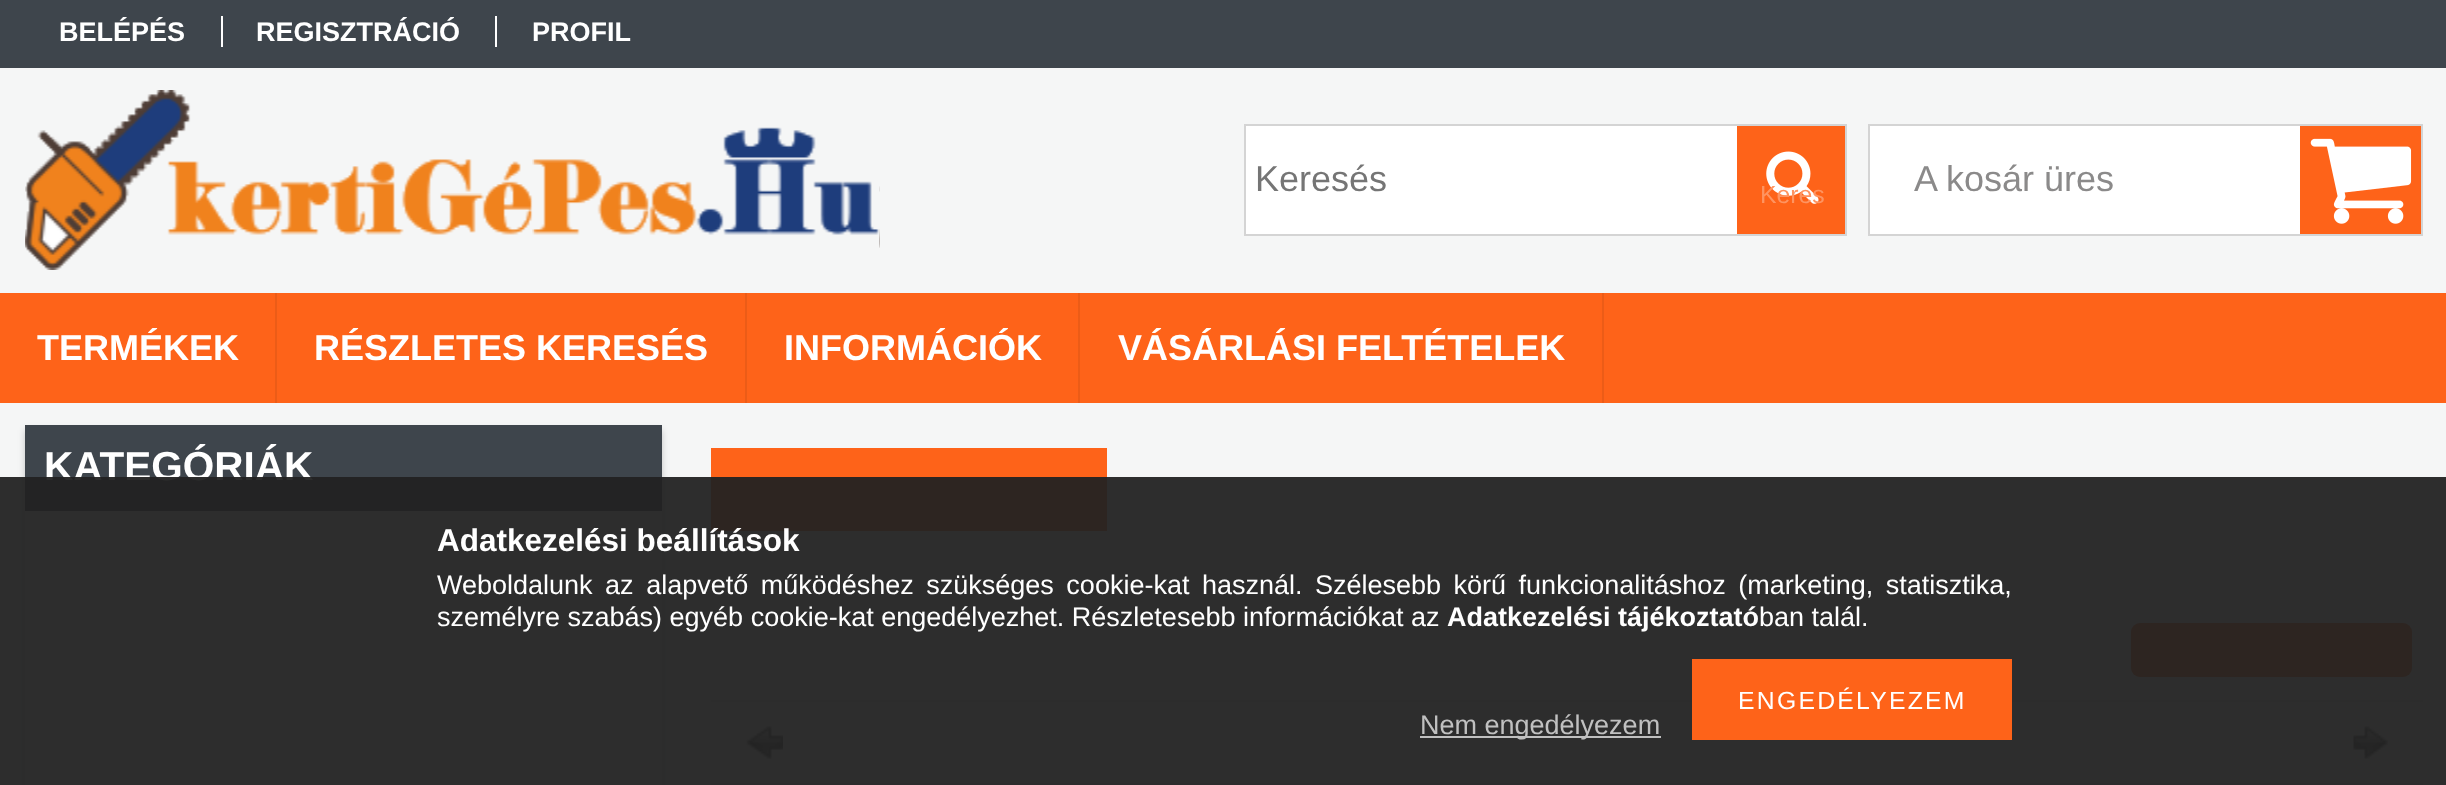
<svg xmlns="http://www.w3.org/2000/svg" width="2446" height="785">
	<rect width="100%" height="100%" fill="#F5F6F6" />
	<rect x="0" y="0" width="2446" height="68" fill="#3E454C" />
	<text x="59" y="41" font-family="Liberation Sans" font-size="27" font-weight="700" fill="#FFFFFF">BELÉPÉS</text>
	<rect x="221" y="16" width="2" height="31" fill="#FFFFFF" />
	<text x="256" y="41" font-family="Liberation Sans" font-size="27" font-weight="700" fill="#FFFFFF">REGISZTRÁCIÓ</text>
	<rect x="495" y="16" width="2" height="31" fill="#FFFFFF" />
	<text x="532" y="41" font-family="Liberation Sans" font-size="27" font-weight="700" fill="#FFFFFF">PROFIL</text>
	<image x="25" y="90" width="854" height="180" href="assets/img1.png" />
	<image x="879" y="186" width="1" height="62" href="assets/img2.png" />
	<rect x="1246" y="126" width="491" height="108" fill="#FFFFFF" />
	<rect x="1245" y="125" width="601" height="110" fill="none" stroke="#D4D4D4" stroke-width="2" />
	<text x="1255" y="191" font-family="Liberation Sans" font-size="36" fill="#757575">Keresés</text>
	<rect x="1737" y="126" width="108" height="108" fill="#FE6319" />
	<image x="1766" y="151" width="53" height="53" href="assets/img3.png" />
	<text x="1760" y="203" font-family="Liberation Sans" font-size="24.75" fill="#FE9461">Keres</text>
	<rect x="1870" y="126" width="430" height="108" fill="#FFFFFF" />
	<rect x="1869" y="125" width="553" height="110" fill="none" stroke="#D4D4D4" stroke-width="2" />
	<text x="1914" y="191" font-family="Liberation Sans" font-size="36" fill="#8B8A8A">A kosár üres</text>
	<rect x="2300" y="126" width="121" height="108" fill="#FE6319" />
	<image x="2310" y="138" width="102" height="86" href="assets/img4.png" />
	<rect x="0" y="293" width="2446" height="110" fill="#FE6319" />
	<rect x="275" y="293" width="2" height="110" fill="#000000" fill-opacity="0.07" />
	<text x="37" y="360" font-family="Liberation Sans" font-size="36" font-weight="700" fill="#FFFFFF">TERMÉKEK</text>
	<rect x="745" y="293" width="2" height="110" fill="#000000" fill-opacity="0.07" />
	<text x="314" y="360" font-family="Liberation Sans" font-size="36" font-weight="700" fill="#FFFFFF">RÉSZLETES KERESÉS</text>
	<rect x="1078" y="293" width="2" height="110" fill="#000000" fill-opacity="0.07" />
	<text x="784" y="360" font-family="Liberation Sans" font-size="36" font-weight="700" fill="#FFFFFF">INFORMÁCIÓK</text>
	<rect x="1602" y="293" width="2" height="110" fill="#000000" fill-opacity="0.07" />
	<text x="1118" y="360" font-family="Liberation Sans" font-size="36" font-weight="700" fill="#FFFFFF">VÁSÁRLÁSI FELTÉTELEK</text>
	<rect x="25" y="430" width="637" height="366" fill="#000000" fill-opacity="0.2" filter="blur(3.5px)" />
	<rect x="25" y="425" width="637" height="86" fill="#3E454C" />
	<text x="44" y="480" font-family="Liberation Sans" font-size="40.5" font-weight="700" fill="#FFFFFF">KATEGÓRIÁK</text>
	<rect x="25" y="511" width="637" height="274" fill="#FFFFFF" />
	<rect x="711" y="531" width="1712" height="2" fill="#EFEFEF" />
	<rect x="711" y="448" width="396" height="83" fill="#FE6319" />
	<rect x="2131" y="623" width="281" height="54" rx="9" fill="#FE6319" />
	<rect x="711" y="700" width="1712" height="2" fill="#ECEAEA" />
	<image x="746" y="726" width="37" height="33" href="assets/img5.png" />
	<image x="2353" y="726" width="35" height="33" href="assets/img6.png" />
	<rect x="711" y="783" width="1712" height="2" fill="#ECEAEA" />
	<rect x="0" y="477" width="2446" height="308" fill="#222222" fill-opacity="0.95" />
	<text x="437" y="551" font-family="Liberation Sans" font-size="31.5" font-weight="700" fill="#FFFFFF">Adatkezelési beállítások</text>
	<g font-family="Liberation Sans" font-size="27" fill="#FFFFFF">
		<text x="437" y="594" word-spacing="5">Weboldalunk az alapvető működéshez szükséges cookie-kat használ. Szélesebb körű funkcionalitáshoz (marketing, statisztika,</text>
		<text x="437" y="626">személyre szabás) egyéb cookie-kat engedélyezhet. Részletesebb információkat az</text>
	</g>
	<text x="1447" y="626" font-family="Liberation Sans" font-size="27" font-weight="700" fill="#FFFFFF">Adatkezelési tájékoztató</text>
	<text x="1759" y="626" font-family="Liberation Sans" font-size="27" fill="#FFFFFF">ban talál.</text>
	<rect x="1692" y="659" width="320" height="81" fill="#FE6319" />
	<text x="1738" y="709" font-family="Liberation Sans" font-size="24.75" letter-spacing="2.25" fill="#FFFFFF">ENGEDÉLYEZEM</text>
	<rect x="1420" y="736" width="241" height="2" fill="#C0C0C0" />
	<text x="1420" y="734" font-family="Liberation Sans" font-size="27" fill="#C0C0C0">Nem engedélyezem</text>
</svg>
